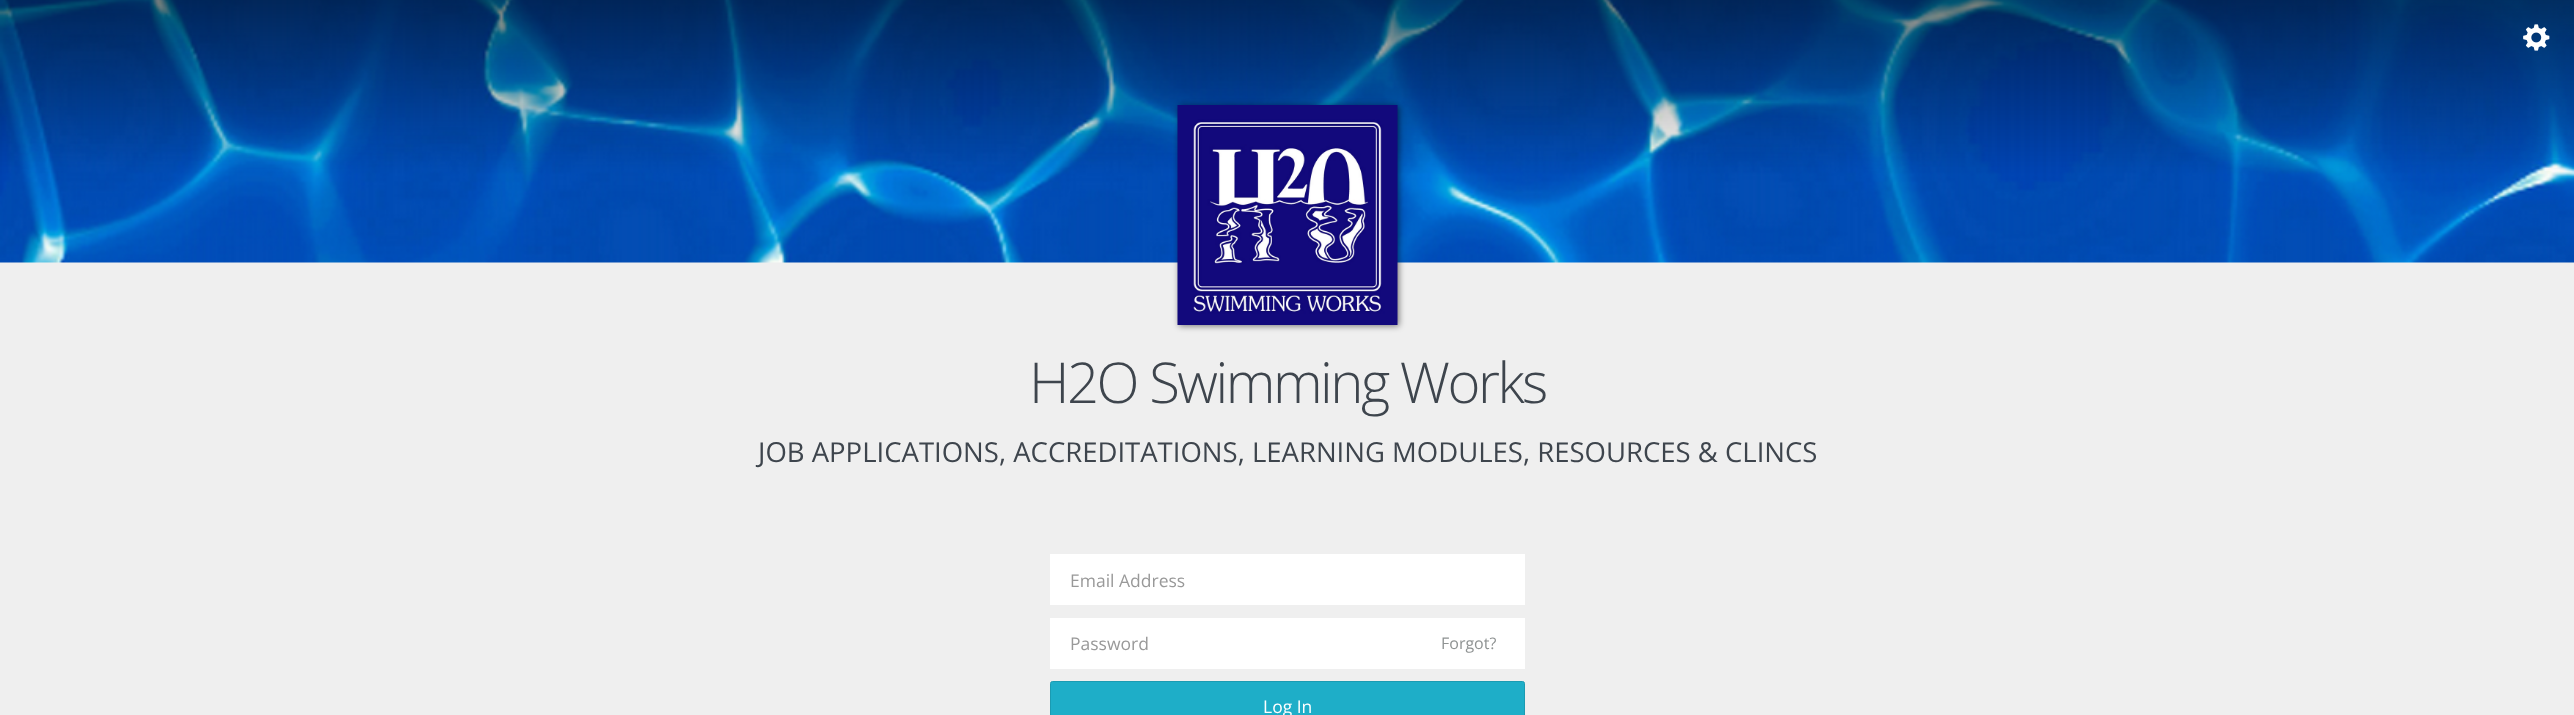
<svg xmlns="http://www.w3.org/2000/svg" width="2574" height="715">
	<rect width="100%" height="100%" fill="#EFEFEF" />
	<image x="0" y="0" width="2574" height="263" href="assets/img1.png" />
	<image x="2523" y="24" width="27" height="27" href="assets/img2.png" />
	<rect x="1179" y="106" width="220" height="220" fill="#000000" fill-opacity="0.5" filter="blur(3px)" />
	<image x="1177" y="105" width="221" height="220" href="assets/img3.png" />
	<text x="1029" y="403" font-family="Open Sans" font-size="56.25" font-weight="300" letter-spacing="-2.5" fill="#3E454D">H2O Swimming Works</text>
	<text x="758" y="462" font-family="Open Sans" font-size="27.5" fill="#3E454D">JOB APPLICATIONS, ACCREDITATIONS, LEARNING MODULES, RESOURCES &amp; CLINCS</text>
	<rect x="1050" y="554" width="475" height="51" fill="#FFFFFF" />
	<text x="1070" y="587" font-family="Open Sans" font-size="17.5" fill="#999999">Email Address</text>
	<rect x="1050" y="618" width="475" height="51" fill="#FFFFFF" />
	<text x="1070" y="650" font-family="Open Sans" font-size="17.5" fill="#999999">Password</text>
	<text x="1441" y="649" font-family="Open Sans" font-size="16" fill="#8F9393">Forgot?</text>
	<rect x="1050.5" y="681.5" width="474" height="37" rx="2" fill="#1EAEC8" stroke="#1B9BB2" />
	<text x="1263" y="713" font-family="Open Sans" font-size="17.5" fill="#FFFFFF">Log In</text>
</svg>
